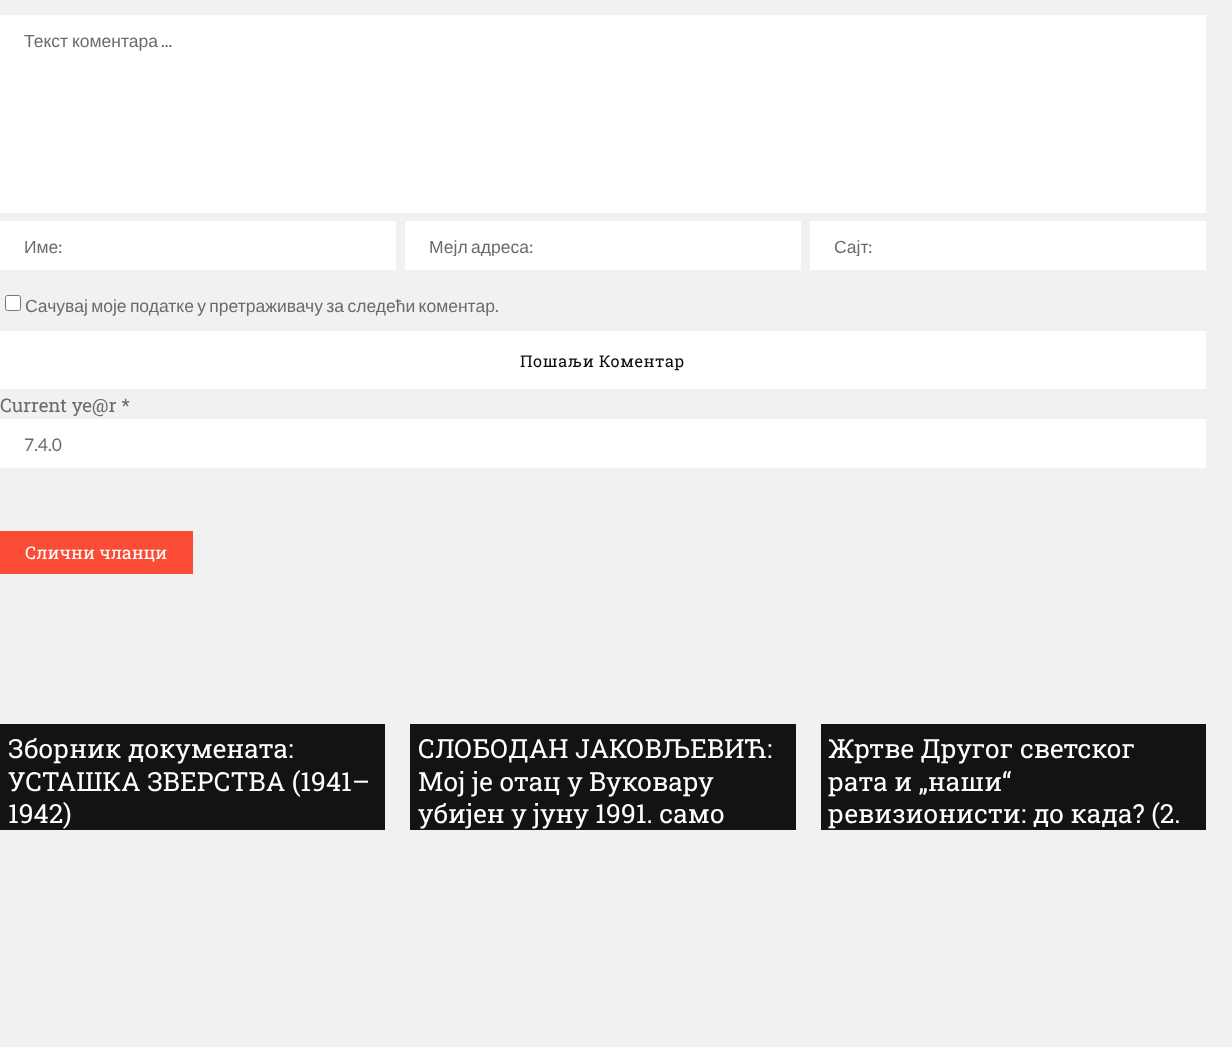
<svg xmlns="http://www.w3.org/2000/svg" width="1232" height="1047">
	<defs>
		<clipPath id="clip1"><rect x="429" y="235" width="349" height="21" /></clipPath>
		<clipPath id="clip2"><rect x="834" y="235" width="349" height="21" /></clipPath>
	</defs>
	<rect width="100%" height="100%" fill="#F1F1F1" />
	<rect x="0" y="15" width="1206" height="198" fill="#FFFFFF" />
	<text x="24" y="47" word-spacing="-1" font-family="Liberation Sans" font-size="17.5" fill="#6C6B6B">Текст коментара</text>
	<text x="161" y="47" font-family="Lato" font-size="17.5" fill="#6C6B6B">...</text>
	<rect x="0" y="221" width="396" height="49" fill="#FFFFFF" />
	<text x="24" y="253" font-family="Liberation Sans" font-size="17.5" fill="#6C6B6B">Име</text>
	<text x="58" y="253" font-family="Lato" font-size="17.5" fill="#6C6B6B">:</text>
	<rect x="405" y="221" width="396" height="49" fill="#FFFFFF" />
	<g clip-path="url(#clip1)">
		<text x="429" y="253" word-spacing="-1.5" font-family="Liberation Sans" font-size="17.5" fill="#6C6B6B">Мејл адреса</text>
	</g>
	<text x="529" y="253" font-family="Lato" font-size="17.5" fill="#6C6B6B">:</text>
	<rect x="810" y="221" width="396" height="49" fill="#FFFFFF" />
	<g clip-path="url(#clip2)">
		<text x="834" y="253" font-family="Liberation Sans" font-size="17.5" fill="#6C6B6B">Сајт</text>
	</g>
	<text x="868" y="253" font-family="Lato" font-size="17.5" fill="#6C6B6B">:</text>
	<rect x="5.5" y="295.5" width="15" height="15" rx="2" fill="#FFFFFF" stroke="#767676" />
	<text x="25" y="312" word-spacing="-1.5" font-family="Liberation Sans" font-size="17.5" fill="#6C6B6B">Сачувај моје податке у претраживачу за следећи коментар</text>
	<text x="495" y="312" font-family="Lato" font-size="17.5" fill="#6C6B6B">.</text>
	<rect x="0" y="331" width="1206" height="58" fill="#FFFFFF" />
	<text x="520" y="367" font-family="Roboto Slab" font-size="16.25" letter-spacing="0.6" fill="#0D0D0D">Пошаљи Коментар</text>
	<text x="0" y="412" font-family="Roboto Slab" font-size="18.75" fill="#6C6B6B">Current ye@r *</text>
	<rect x="0" y="419" width="1206" height="49" fill="#FFFFFF" />
	<text x="24" y="451" font-family="Lato" font-size="17.5" fill="#6C6B6B">7.4.0</text>
	<rect x="0" y="531" width="193" height="43" fill="#FB4C35" />
	<text x="25" y="559" font-family="Roboto Slab" font-size="17.5" fill="#FFFFFF">Слични чланци</text>
	<rect x="0" y="724" width="385" height="106" fill="#141312" />
	<g font-family="Roboto Slab" font-size="26.25" fill="#FFFFFF">
		<text x="8" y="758">Зборник докумената:</text>
		<text x="8" y="791">УСТАШКА ЗВЕРСТВА (1941–</text>
		<text x="8" y="823">1942)</text>
	</g>
	<rect x="410" y="724" width="386" height="106" fill="#141312" />
	<g font-family="Roboto Slab" font-size="26.25" fill="#FFFFFF">
		<text x="418" y="758">СЛОБОДАН ЈАКОВЉЕВИЋ:</text>
		<text x="418" y="791">Мој је отац у Вуковару</text>
		<text x="418" y="823">убијен у јуну 1991. само</text>
	</g>
	<rect x="821" y="724" width="385" height="106" fill="#141312" />
	<g font-family="Roboto Slab" font-size="26.25" fill="#FFFFFF">
		<text x="828" y="758">Жртве Другог светског</text>
		<text x="828" y="791">рата и „наши“</text>
		<text x="828" y="823">ревизионисти: до када? (2.</text>
	</g>
</svg>
